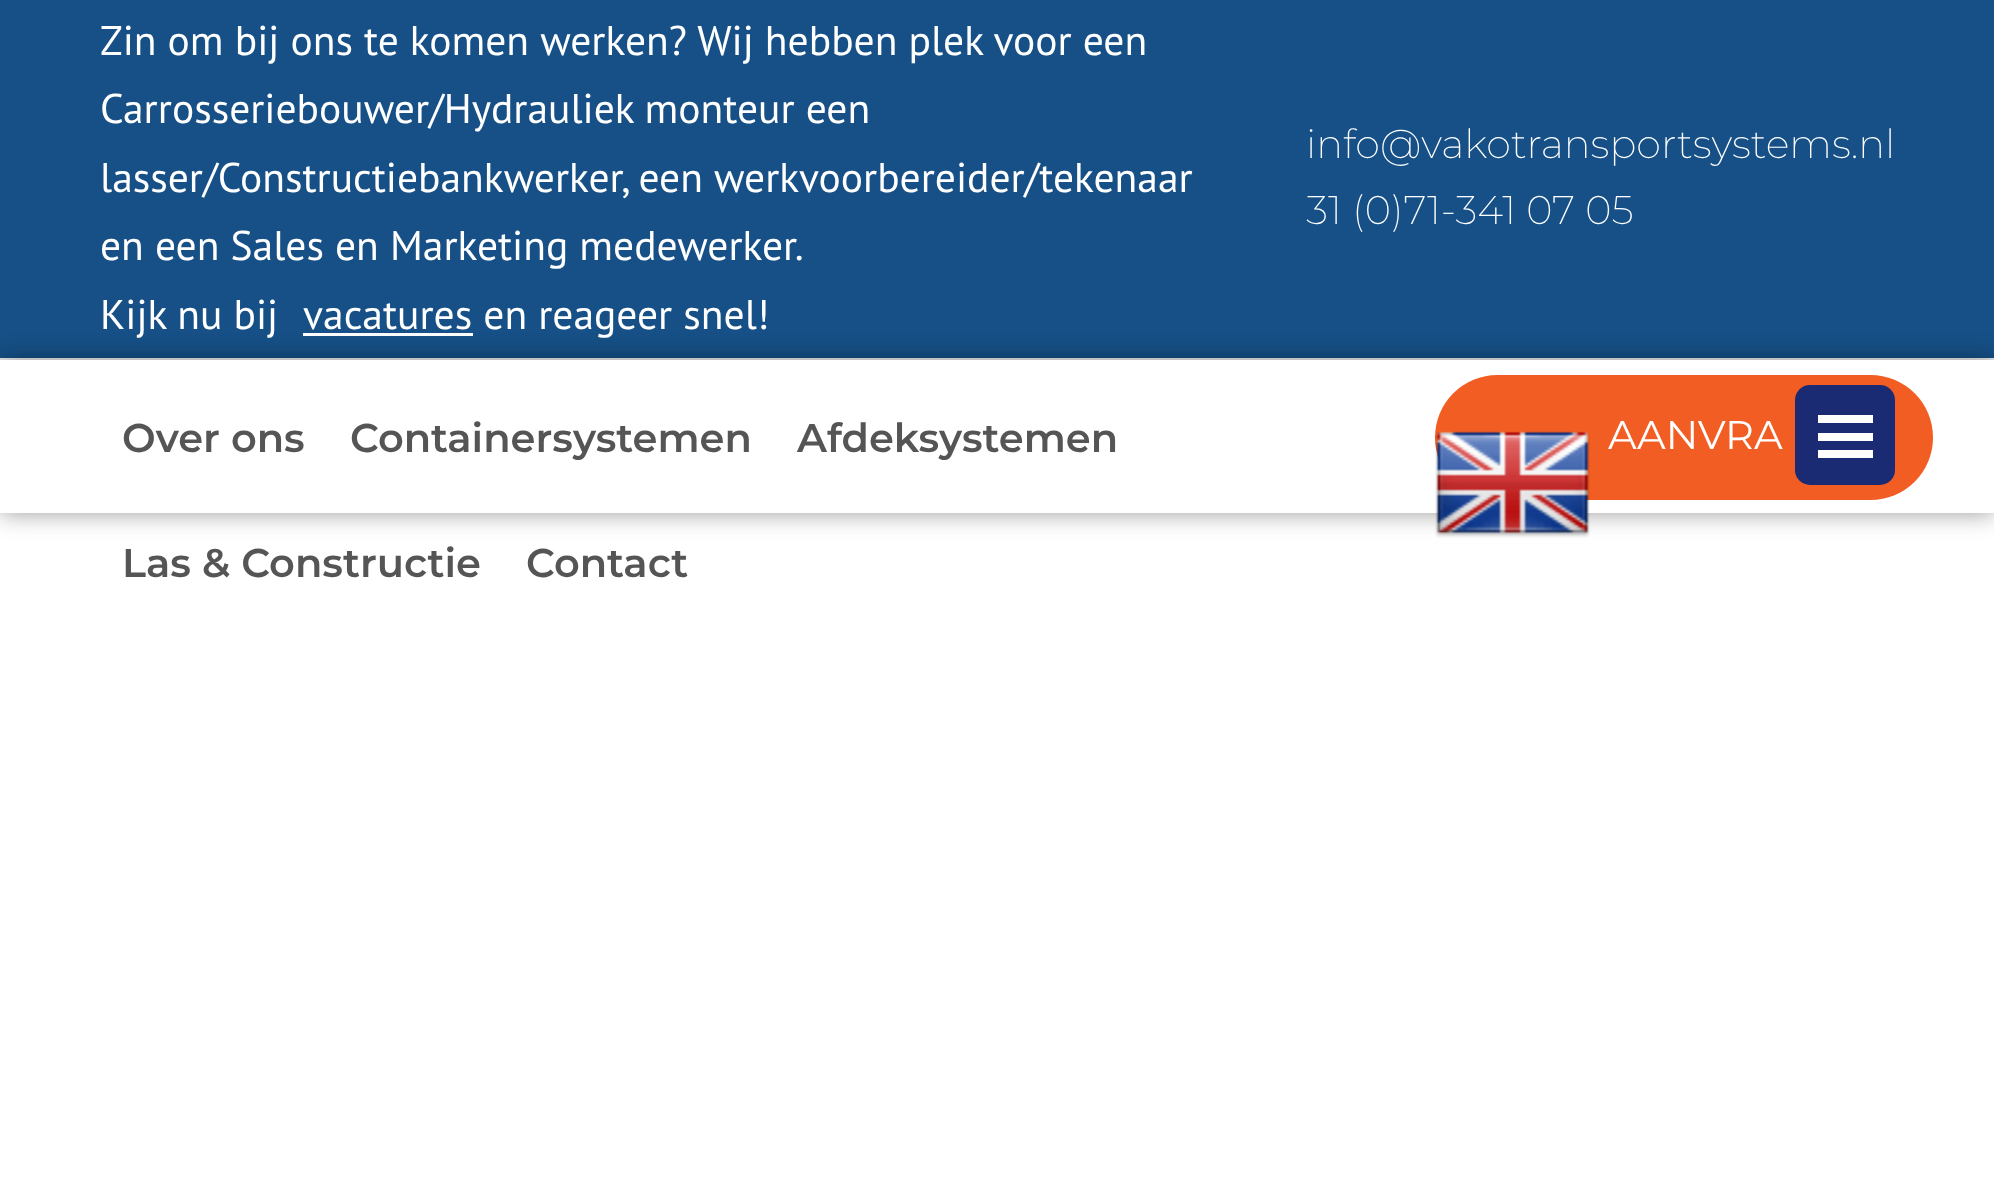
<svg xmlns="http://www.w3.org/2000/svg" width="1994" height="1196">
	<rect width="100%" height="100%" fill="#FFFFFF" />
	<rect x="0" y="0" width="1994" height="358" fill="#165086" />
	<rect x="0" y="358" width="1994" height="2" fill="#EEEEEE" />
	<g font-family="PT Sans" font-size="41.55" fill="#FFFFFF">
		<text x="100" y="55">Zin om bij ons te komen werken? Wij hebben plek voor een</text>
		<text x="100" y="123">Carrosseriebouwer/Hydrauliek monteur een</text>
		<text x="100" y="192">lasser/Constructiebankwerker, een werkvoorbereider/tekenaar</text>
		<text x="100" y="260">en een Sales en Marketing medewerker.</text>
		<text x="100" y="329">Kijk nu bij</text>
	</g>
	<rect x="303" y="333" width="170" height="3" fill="#FFFFFF" />
	<text x="303" y="329" font-family="PT Sans" font-size="41.55" fill="#FFFFFF">vacatures en reageer snel!</text>
	<g font-family="Montserrat" font-size="40" font-weight="200" fill="#FFFFFF">
		<text x="1306" y="158">info@vakotransportsystems.nl</text>
		<text x="1306" y="224">31 (0)71-341 07 05</text>
	</g>
	<rect x="0" y="360" width="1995" height="153" fill="#000000" fill-opacity="0.4" filter="blur(12.5px)" />
	<rect x="0" y="360" width="1994" height="153" fill="#FFFFFF" />
	<g font-family="Montserrat" font-size="40" font-weight="600" fill="#555555">
		<text x="122" y="452">Over ons</text>
		<text x="350" y="452">Containersystemen</text>
		<text x="797" y="452">Afdeksystemen</text>
		<text x="122" y="577">Las &amp; Constructie</text>
		<text x="526" y="577">Contact</text>
	</g>
	<rect x="1435" y="375" width="498" height="125" rx="62.5" fill="#F15D22" />
	<text x="1608" y="449" font-family="Montserrat" font-size="40" fill="#FFFFFF">AANVRA</text>
	<rect x="1795" y="385" width="100" height="100" rx="15" fill="#1A2B74" />
	<rect x="1818" y="433" width="55" height="8" fill="#FFFFFF" />
	<rect x="1818" y="415" width="55" height="8" fill="#FFFFFF" />
	<rect x="1818" y="450" width="55" height="8" fill="#FFFFFF" />
	<image x="1435" y="431" width="155" height="107" href="assets/img1.png" />
</svg>
